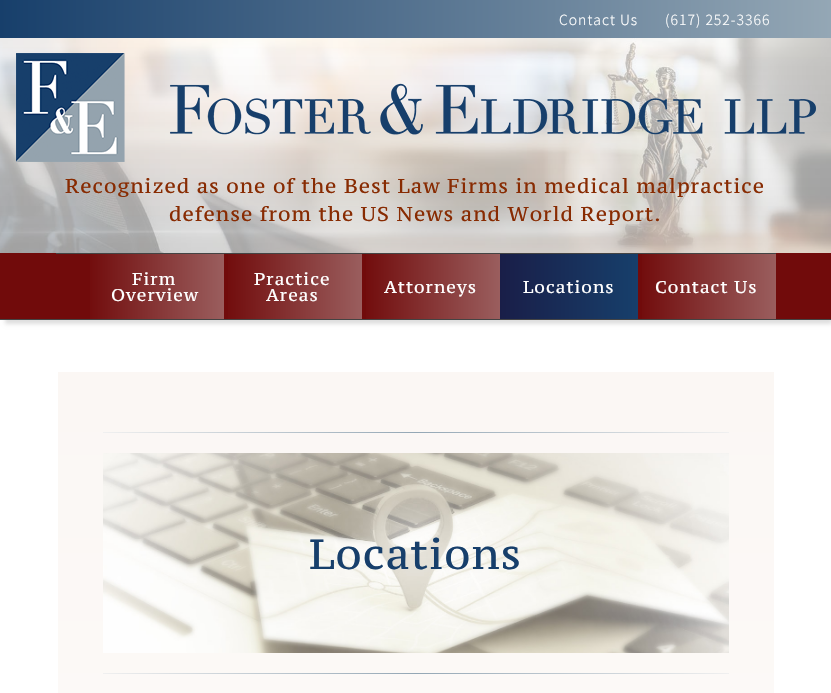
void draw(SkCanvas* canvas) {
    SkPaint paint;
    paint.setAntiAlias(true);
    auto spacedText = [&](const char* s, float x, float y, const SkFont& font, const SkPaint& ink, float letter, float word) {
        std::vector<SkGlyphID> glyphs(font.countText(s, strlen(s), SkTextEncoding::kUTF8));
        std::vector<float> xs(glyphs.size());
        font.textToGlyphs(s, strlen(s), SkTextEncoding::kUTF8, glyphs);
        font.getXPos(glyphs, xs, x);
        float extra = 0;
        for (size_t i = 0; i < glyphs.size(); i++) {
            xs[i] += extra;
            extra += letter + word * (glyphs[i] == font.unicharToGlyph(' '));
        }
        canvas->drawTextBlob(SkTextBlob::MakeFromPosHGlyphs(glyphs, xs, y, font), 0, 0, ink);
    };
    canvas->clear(0xFFFFFFFF);
    {
        const SkColor colors[] = {0xFF173F6B, 0xFF94A7B5};
        const float stops[] = {0, 1};
        const SkPoint ends[] = {{0, 19}, {831, 19}};
        paint.setShader(SkGradientShader::MakeLinear(ends, colors, stops, 2, SkTileMode::kClamp));
        paint.setAlpha(255);
    }
    canvas->drawRect(SkRect::MakeXYWH(0, 0, 831, 38), paint);
    SkFont font1(fontMgr->matchFamilyStyle("Noto Sans JP", SkFontStyle(300, SkFontStyle::kNormal_Width, SkFontStyle::kUpright_Slant)), 14);
    font1.setSubpixel(true);
    paint.setShader(nullptr);
    paint.setColor(0xFFFFFFFF);
    spacedText("Contact Us", 559, 25, font1, paint, 1, 0);
    spacedText("(617) 252-3366", 665, 25, font1, paint, 1, 0);
    canvas->drawImageRect(SkImages::DeferredFromEncodedData(SkData::MakeFromFileName("img1.png")), SkRect::MakeXYWH(0, 38, 831, 215), SkSamplingOptions());
    canvas->drawImageRect(SkImages::DeferredFromEncodedData(SkData::MakeFromFileName("img2.png")), SkRect::MakeXYWH(16, 53, 800, 109), SkSamplingOptions());
    SkFont font2(fontMgr->matchFamilyStyle("PT Serif Caption", SkFontStyle::Normal()), 20);
    font2.setSubpixel(true);
    paint.setColor(0xFF882B02);
    spacedText("Recognized as one of the Best Law Firms in medical malpractice", 65, 193, font2, paint, 1, 0);
    spacedText("defense from the US News and World Report.", 169, 221, font2, paint, 1, 0);
    paint.setColor(0xFFDEDEDE);
    paint.setMaskFilter(SkMaskFilter::MakeBlur(kNormal_SkBlurStyle, 2));
    canvas->drawRect(SkRect::MakeXYWH(5, 261, 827, 63), paint);
    paint.setMaskFilter(nullptr);
    paint.setColor(0xFF710B0B);
    canvas->drawRect(SkRect::MakeXYWH(0, 253, 831, 66), paint);
    paint.setColor(0xFF444444);
    canvas->drawRect(SkRect::MakeXYWH(0, 319, 831, 1), paint);
    canvas->drawRect(SkRect::MakeXYWH(56, 253, 720, 1), paint);
    {
        const SkColor colors[] = {0xFF710B0B, 0xFF9A5E5E};
        const float stops[] = {0, 1};
        const SkPoint ends[] = {{86, 287}, {224, 287}};
        paint.setShader(SkGradientShader::MakeLinear(ends, colors, stops, 2, SkTileMode::kClamp));
        paint.setAlpha(255);
    }
    canvas->drawRect(SkRect::MakeXYWH(90, 254, 134, 65), paint);
    SkFont font3(fontMgr->matchFamilyStyle("PT Serif Caption", SkFontStyle::Normal()), 17);
    font3.setSubpixel(true);
    paint.setShader(nullptr);
    paint.setColor(0xFFFFFFFF);
    spacedText("Firm", 132, 285, font3, paint, 1, 0);
    spacedText("Overview", 111, 301, font3, paint, 1, 0);
    {
        const SkColor colors[] = {0xFF710B0B, 0xFF9A5E5E};
        const float stops[] = {0, 1};
        const SkPoint ends[] = {{224, 287}, {362, 287}};
        paint.setShader(SkGradientShader::MakeLinear(ends, colors, stops, 2, SkTileMode::kClamp));
        paint.setAlpha(255);
    }
    canvas->drawRect(SkRect::MakeXYWH(228, 254, 134, 65), paint);
    paint.setShader(nullptr);
    paint.setColor(0xFFFFFFFF);
    spacedText("Practice", 254, 285, font3, paint, 1, 0);
    spacedText("Areas", 266, 301, font3, paint, 1, 0);
    {
        const SkColor colors[] = {0xFF710B0B, 0xFF9A5E5E};
        const float stops[] = {0, 1};
        const SkPoint ends[] = {{362, 287}, {500, 287}};
        paint.setShader(SkGradientShader::MakeLinear(ends, colors, stops, 2, SkTileMode::kClamp));
        paint.setAlpha(255);
    }
    canvas->drawRect(SkRect::MakeXYWH(366, 254, 134, 65), paint);
    paint.setShader(nullptr);
    paint.setColor(0xFFFFFFFF);
    spacedText("Attorneys", 384, 293, font3, paint, 1, 0);
    {
        const SkColor colors[] = {0xFF191E48, 0xFF173F6B};
        const float stops[] = {0, 1};
        const SkPoint ends[] = {{500, 287}, {638, 287}};
        paint.setShader(SkGradientShader::MakeLinear(ends, colors, stops, 2, SkTileMode::kClamp));
        paint.setAlpha(255);
    }
    canvas->drawRect(SkRect::MakeXYWH(500, 254, 138, 65), paint);
    paint.setShader(nullptr);
    paint.setColor(0xFFFFFFFF);
    spacedText("Locations", 523, 293, font3, paint, 1, 0);
    {
        const SkColor colors[] = {0xFF710B0B, 0xFF9A5E5E};
        const float stops[] = {0, 1};
        const SkPoint ends[] = {{638, 287}, {776, 287}};
        paint.setShader(SkGradientShader::MakeLinear(ends, colors, stops, 2, SkTileMode::kClamp));
        paint.setAlpha(255);
    }
    canvas->drawRect(SkRect::MakeXYWH(642, 254, 134, 65), paint);
    paint.setShader(nullptr);
    paint.setColor(0xFFFFFFFF);
    spacedText("Contact Us", 655, 293, font3, paint, 1, 0);
    {
        const SkColor colors[] = {0xFFFBF7F4, 0xFFFFFFFF};
        const float stops[] = {0, 1};
        const SkPoint ends[] = {{416, 372}, {416, 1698}};
        paint.setShader(SkGradientShader::MakeLinear(ends, colors, stops, 2, SkTileMode::kClamp));
        paint.setAlpha(255);
    }
    canvas->drawRect(SkRect::MakeXYWH(58, 372, 716, 321), paint);
    {
        const SkColor colors[] = {0xFFF0F0F0, 0xFF94A7B5, 0xFFF0F0F0};
        const float stops[] = {0, 0.5f, 1};
        const SkPoint ends[] = {{103, 433}, {729, 433}};
        paint.setShader(SkGradientShader::MakeLinear(ends, colors, stops, 3, SkTileMode::kClamp));
        paint.setAlpha(255);
    }
    canvas->drawRect(SkRect::MakeXYWH(103, 432, 626, 1), paint);
    canvas->drawImageRect(SkImages::DeferredFromEncodedData(SkData::MakeFromFileName("img3.png")), SkRect::MakeXYWH(103, 453, 626, 200), SkSamplingOptions());
    SkFont font4(fontMgr->matchFamilyStyle("PT Serif Caption", SkFontStyle::Normal()), 42);
    font4.setSubpixel(true);
    paint.setShader(nullptr);
    paint.setColor(0xFF173F6B);
    spacedText("Locations", 309, 569, font4, paint, 1, 0);
    {
        const SkColor colors[] = {0xFFF0F0F0, 0xFF94A7B5, 0xFFF0F0F0};
        const float stops[] = {0, 0.5f, 1};
        const SkPoint ends[] = {{103, 674}, {729, 674}};
        paint.setShader(SkGradientShader::MakeLinear(ends, colors, stops, 3, SkTileMode::kClamp));
        paint.setAlpha(255);
    }
    canvas->drawRect(SkRect::MakeXYWH(103, 673, 626, 1), paint);
}
